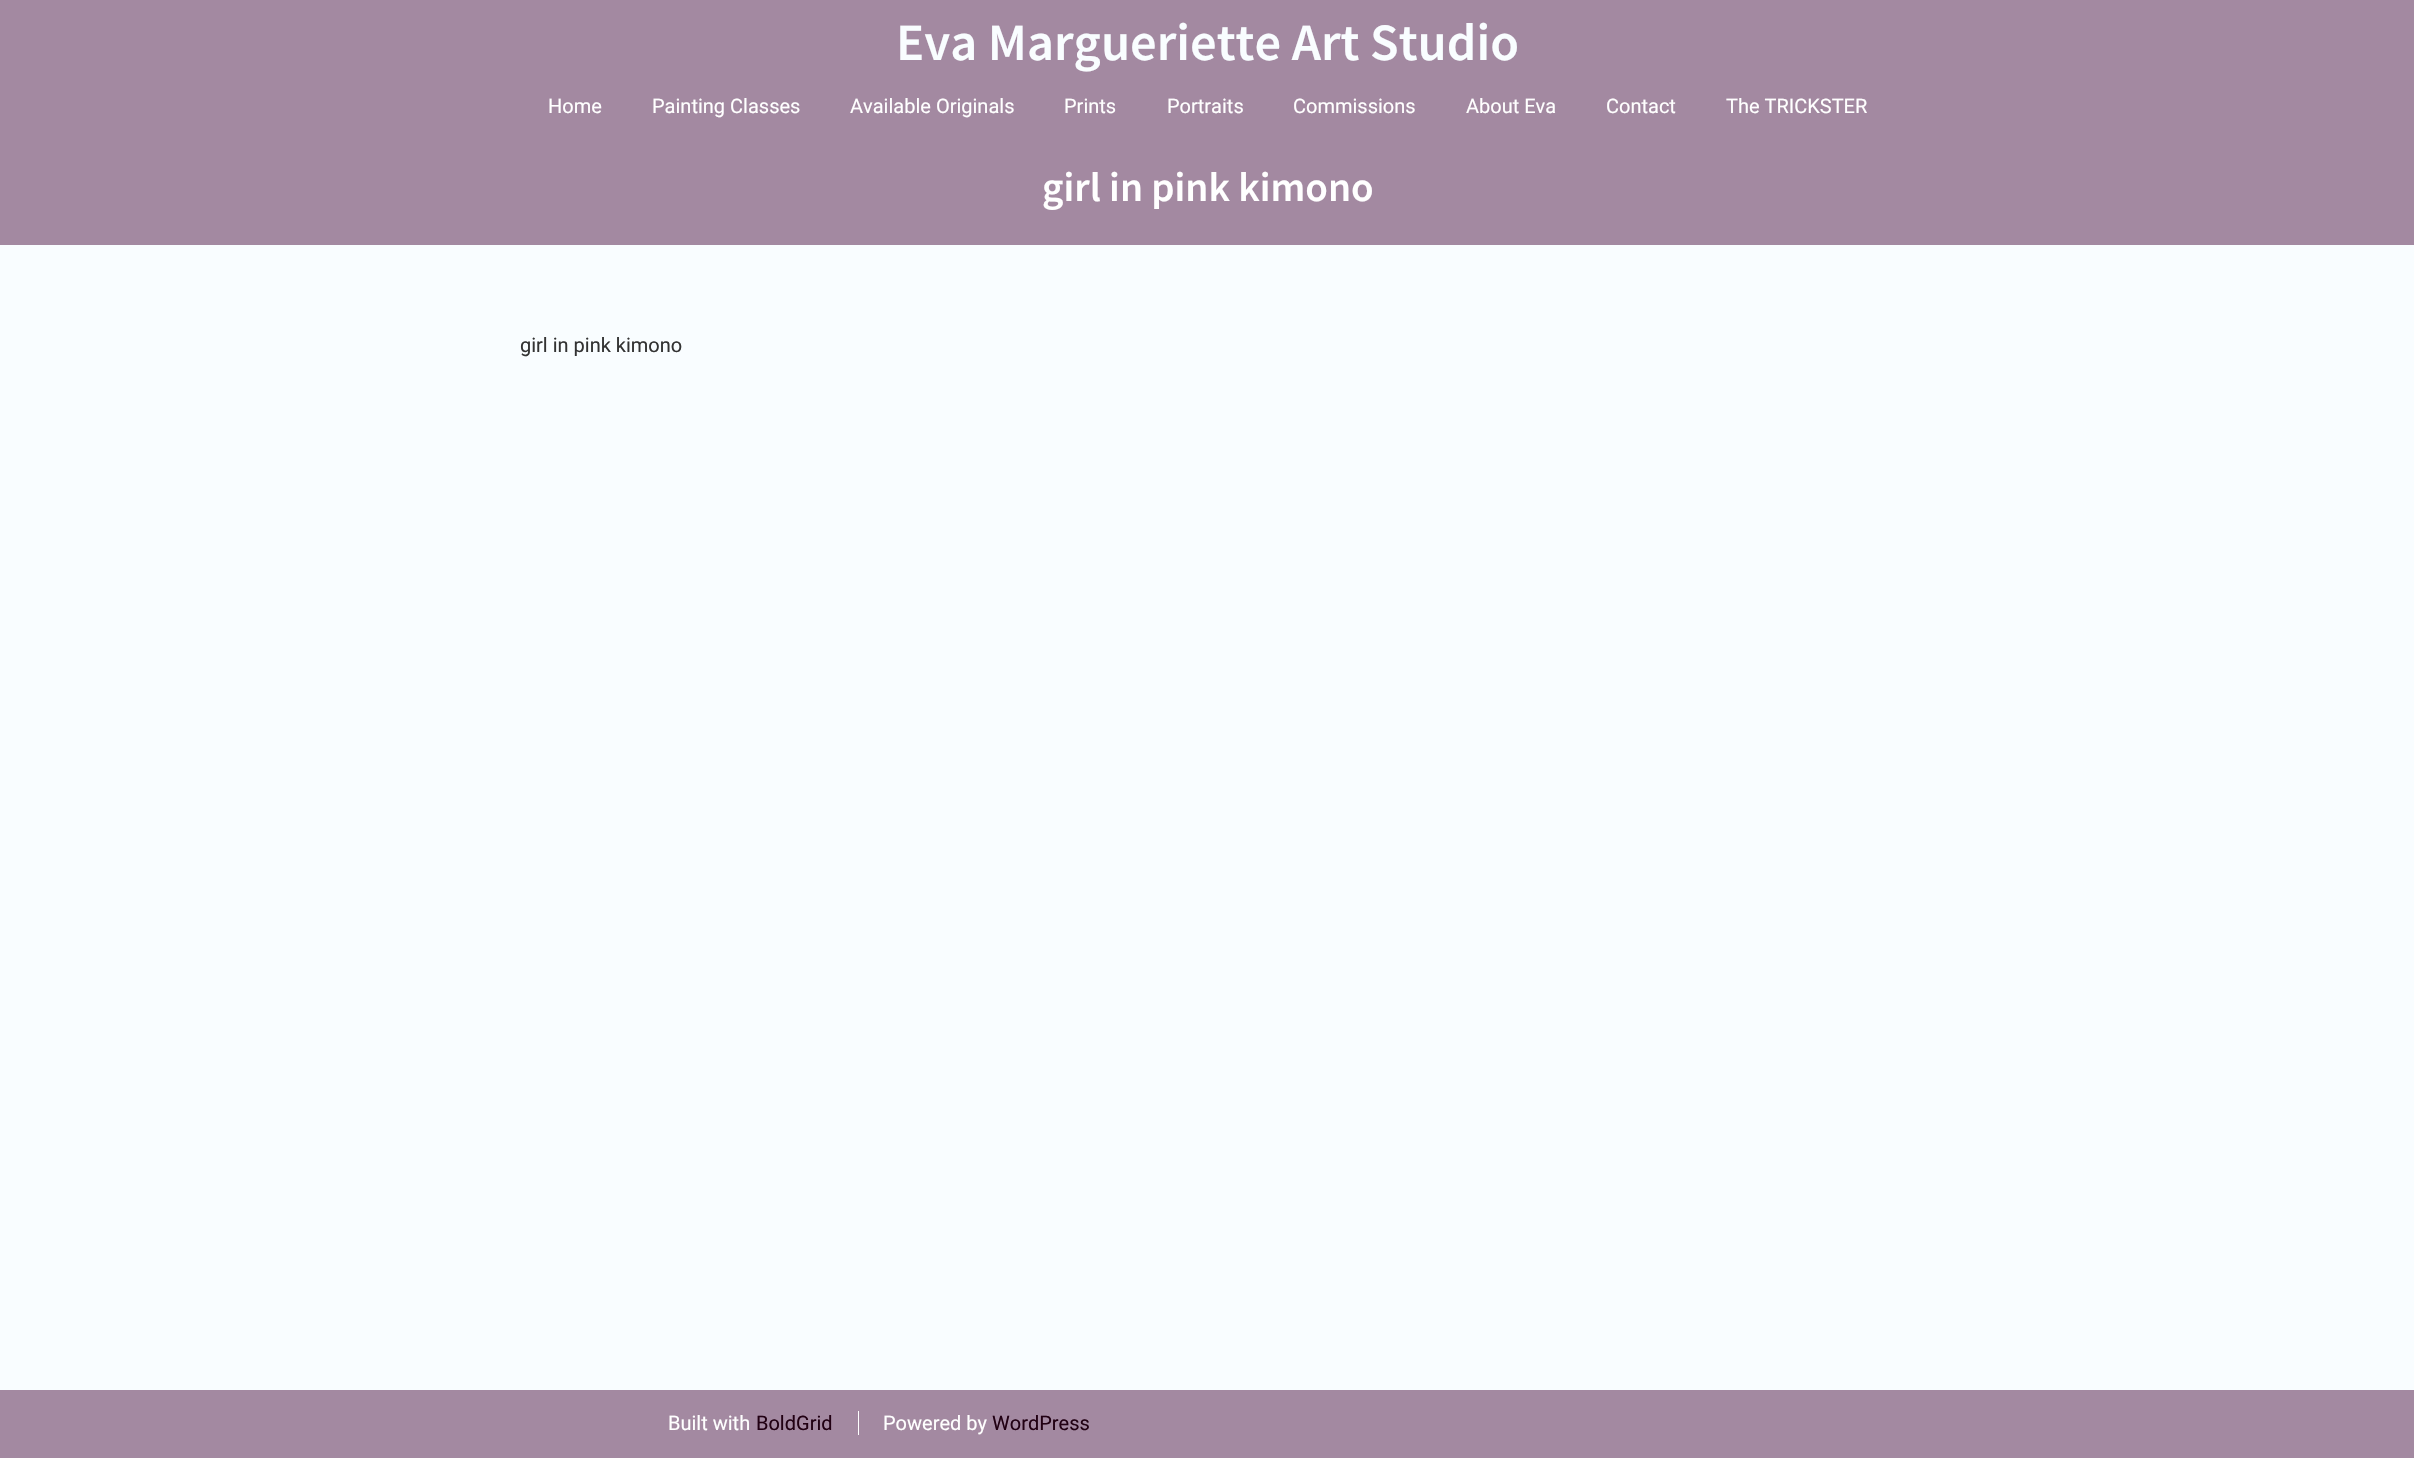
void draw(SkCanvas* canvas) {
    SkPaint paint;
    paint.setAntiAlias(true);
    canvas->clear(0xFFF9FDFF);
    paint.setColor(0xFFA389A1);
    canvas->drawRect(SkRect::MakeXYWH(0, 0, 2414, 245), paint);
    SkFont font1(fontMgr->matchFamilyStyle("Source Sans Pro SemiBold", SkFontStyle(600, SkFontStyle::kNormal_Width, SkFontStyle::kUpright_Slant)), 52.5f);
    font1.setSubpixel(true);
    paint.setColor(0xFFF9FDFF);
    canvas->drawString("Eva Margueriette Art Studio", 896, 60, font1, paint);
    SkFont font2(fontMgr->matchFamilyStyle("Roboto", SkFontStyle::Normal()), 20);
    font2.setSubpixel(true);
    paint.setColor(0xFFFFFFFF);
    canvas->drawString("Home", 548, 113, font2, paint);
    canvas->drawString("Painting Classes", 652, 113, font2, paint);
    canvas->drawString("Available Originals", 850, 113, font2, paint);
    canvas->drawString("Prints", 1064, 113, font2, paint);
    canvas->drawString("Portraits", 1167, 113, font2, paint);
    canvas->drawString("Commissions", 1293, 113, font2, paint);
    canvas->drawString("About Eva", 1466, 113, font2, paint);
    canvas->drawString("Contact", 1606, 113, font2, paint);
    canvas->drawString("The TRICKSTER", 1726, 113, font2, paint);
    SkFont font3(fontMgr->matchFamilyStyle("Source Sans Pro SemiBold", SkFontStyle(600, SkFontStyle::kNormal_Width, SkFontStyle::kUpright_Slant)), 41.25f);
    font3.setSubpixel(true);
    canvas->drawString("girl in pink kimono", 1042, 201, font3, paint);
    paint.setColor(0xFF333333);
    canvas->drawString("girl in pink kimono", 520, 352, font2, paint);
    paint.setColor(0xFFA389A1);
    canvas->drawRect(SkRect::MakeXYWH(0, 1390, 2414, 68), paint);
    paint.setColor(0xFFFFFFFF);
    canvas->drawString("Built with", 668, 1430, font2, paint);
    paint.setColor(0xFF210013);
    canvas->drawString("BoldGrid", 756, 1430, font2, paint);
    paint.setColor(0xFFFFFFFF);
    canvas->drawRect(SkRect::MakeXYWH(858, 1411, 1, 24), paint);
    canvas->drawString("Powered by", 883, 1430, font2, paint);
    paint.setColor(0xFF210013);
    canvas->drawString("WordPress", 992, 1430, font2, paint);
}
